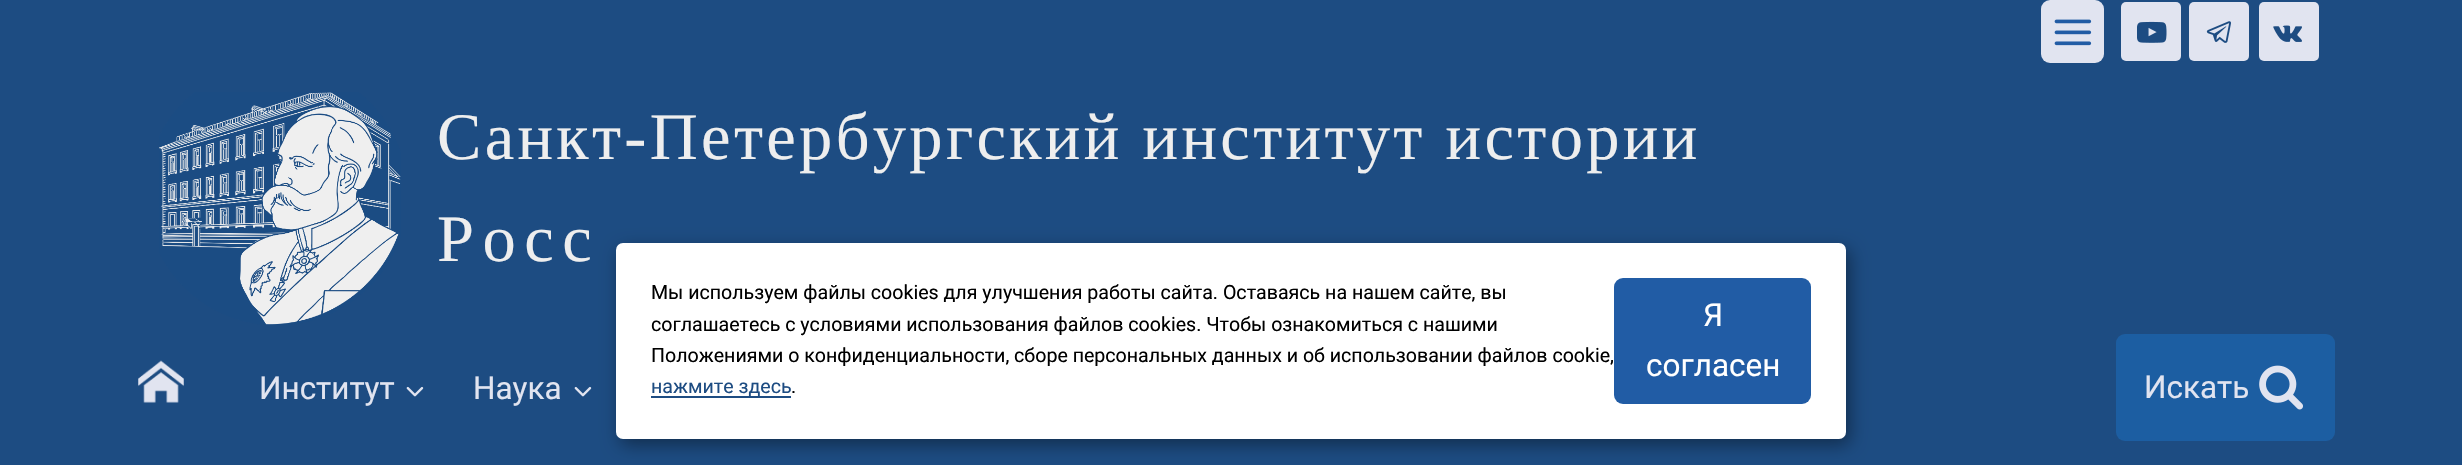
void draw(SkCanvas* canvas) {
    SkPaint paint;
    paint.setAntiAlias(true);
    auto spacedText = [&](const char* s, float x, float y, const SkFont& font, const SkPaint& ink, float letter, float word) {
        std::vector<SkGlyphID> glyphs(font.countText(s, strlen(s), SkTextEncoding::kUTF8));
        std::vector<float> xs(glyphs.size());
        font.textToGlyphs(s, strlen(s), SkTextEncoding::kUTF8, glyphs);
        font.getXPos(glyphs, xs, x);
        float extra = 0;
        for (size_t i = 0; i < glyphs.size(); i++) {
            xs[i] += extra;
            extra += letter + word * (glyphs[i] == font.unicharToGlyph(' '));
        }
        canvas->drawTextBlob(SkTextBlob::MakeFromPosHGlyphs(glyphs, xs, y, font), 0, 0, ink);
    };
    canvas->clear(0xFF1D4C82);
    paint.setColor(0xFFE1E4F0);
    canvas->drawRoundRect(SkRect::MakeXYWH(2041, 0, 63, 63), 9, 9, paint);
    canvas->drawImageRect(SkImages::DeferredFromEncodedData(SkData::MakeFromFileName("img1.png")), SkRect::MakeXYWH(2054, 19, 38, 27), SkSamplingOptions());
    canvas->drawRoundRect(SkRect::MakeXYWH(2121, 2, 60, 59), 5, 5, paint);
    canvas->drawImageRect(SkImages::DeferredFromEncodedData(SkData::MakeFromFileName("img2.png")), SkRect::MakeXYWH(2137, 21, 30, 22), SkSamplingOptions());
    canvas->drawRoundRect(SkRect::MakeXYWH(2189, 2, 60, 59), 5, 5, paint);
    canvas->drawImageRect(SkImages::DeferredFromEncodedData(SkData::MakeFromFileName("img3.png")), SkRect::MakeXYWH(2206, 21, 25, 22), SkSamplingOptions());
    canvas->drawRoundRect(SkRect::MakeXYWH(2259, 2, 60, 59), 5, 5, paint);
    canvas->drawImageRect(SkImages::DeferredFromEncodedData(SkData::MakeFromFileName("img4.png")), SkRect::MakeXYWH(2273, 25, 29, 17), SkSamplingOptions());
    canvas->drawImageRect(SkImages::DeferredFromEncodedData(SkData::MakeFromFileName("img5.png")), SkRect::MakeXYWH(159, 92, 242, 233), SkSamplingOptions());
    SkFont font1(fontMgr->matchFamilyStyle("Liberation Serif", SkFontStyle::Normal()), 66.5f);
    font1.setSubpixel(true);
    paint.setColor(0xFFEEEEEE);
    spacedText("Санкт-Петербургский институт истории", 437, 159, font1, paint, 3.3f, 0);
    spacedText("Росс", 437, 261, font1, paint, 8.5f, 0);
    canvas->drawImageRect(SkImages::DeferredFromEncodedData(SkData::MakeFromFileName("img6.png")), SkRect::MakeXYWH(138, 360, 46, 43), SkSamplingOptions());
    SkFont font2(fontMgr->matchFamilyStyle("Roboto", SkFontStyle::Normal()), 31.5f);
    font2.setSubpixel(true);
    paint.setColor(0xFFE1E4F0);
    canvas->drawString("Институт", 259, 399, font2, paint);
    canvas->drawImageRect(SkImages::DeferredFromEncodedData(SkData::MakeFromFileName("img7.png")), SkRect::MakeXYWH(406, 386, 18, 11), SkSamplingOptions());
    canvas->drawString("Наука", 473, 399, font2, paint);
    canvas->drawImageRect(SkImages::DeferredFromEncodedData(SkData::MakeFromFileName("img7.png")), SkRect::MakeXYWH(574, 386, 18, 11), SkSamplingOptions());
    paint.setColor(0xFF1C5EA2);
    canvas->drawRoundRect(SkRect::MakeXYWH(2116, 334, 219, 107), 9, 9, paint);
    paint.setColor(0xFFE1E4F0);
    canvas->drawString("Искать", 2144, 398, font2, paint);
    canvas->drawImageRect(SkImages::DeferredFromEncodedData(SkData::MakeFromFileName("img8.png")), SkRect::MakeXYWH(2259, 365, 44, 45), SkSamplingOptions());
    paint.setColor(0x66000000);
    paint.setMaskFilter(SkMaskFilter::MakeBlur(kNormal_SkBlurStyle, 9));
    canvas->drawRoundRect(SkRect::MakeXYWH(620, 249, 1230, 196), 7, 7, paint);
    paint.setMaskFilter(nullptr);
    paint.setColor(0xFFFFFFFF);
    canvas->drawRoundRect(SkRect::MakeXYWH(616, 243, 1230, 196), 7, 7, paint);
    SkFont font3(fontMgr->matchFamilyStyle("Roboto", SkFontStyle::Normal()), 19.6f);
    font3.setSubpixel(true);
    paint.setColor(0xFF000000);
    canvas->drawString("Мы используем файлы cookies для улучшения работы сайта. Оставаясь на нашем сайте, вы", 651, 299, font3, paint);
    canvas->drawString("соглашаетесь с условиями использования файлов cookies. Чтобы ознакомиться с нашими", 651, 331, font3, paint);
    canvas->drawString("Положениями о конфиденциальности, сборе персональных данных и об использовании файлов cookie,", 651, 362, font3, paint);
    paint.setColor(0xFF1D4C82);
    canvas->drawRect(SkRect::MakeXYWH(651, 396, 140, 2), paint);
    canvas->drawString("нажмите здесь", 651, 393, font3, paint);
    paint.setColor(0xFF000000);
    canvas->drawString(".", 791, 393, font3, paint);
    paint.setColor(0xFF215CA5);
    canvas->drawRoundRect(SkRect::MakeXYWH(1614, 278, 197, 126), 9, 9, paint);
    paint.setColor(0xFFFFFFFF);
    canvas->drawString("Я", 1703, 326, font2, paint);
    canvas->drawString("согласен", 1646, 376, font2, paint);
}
